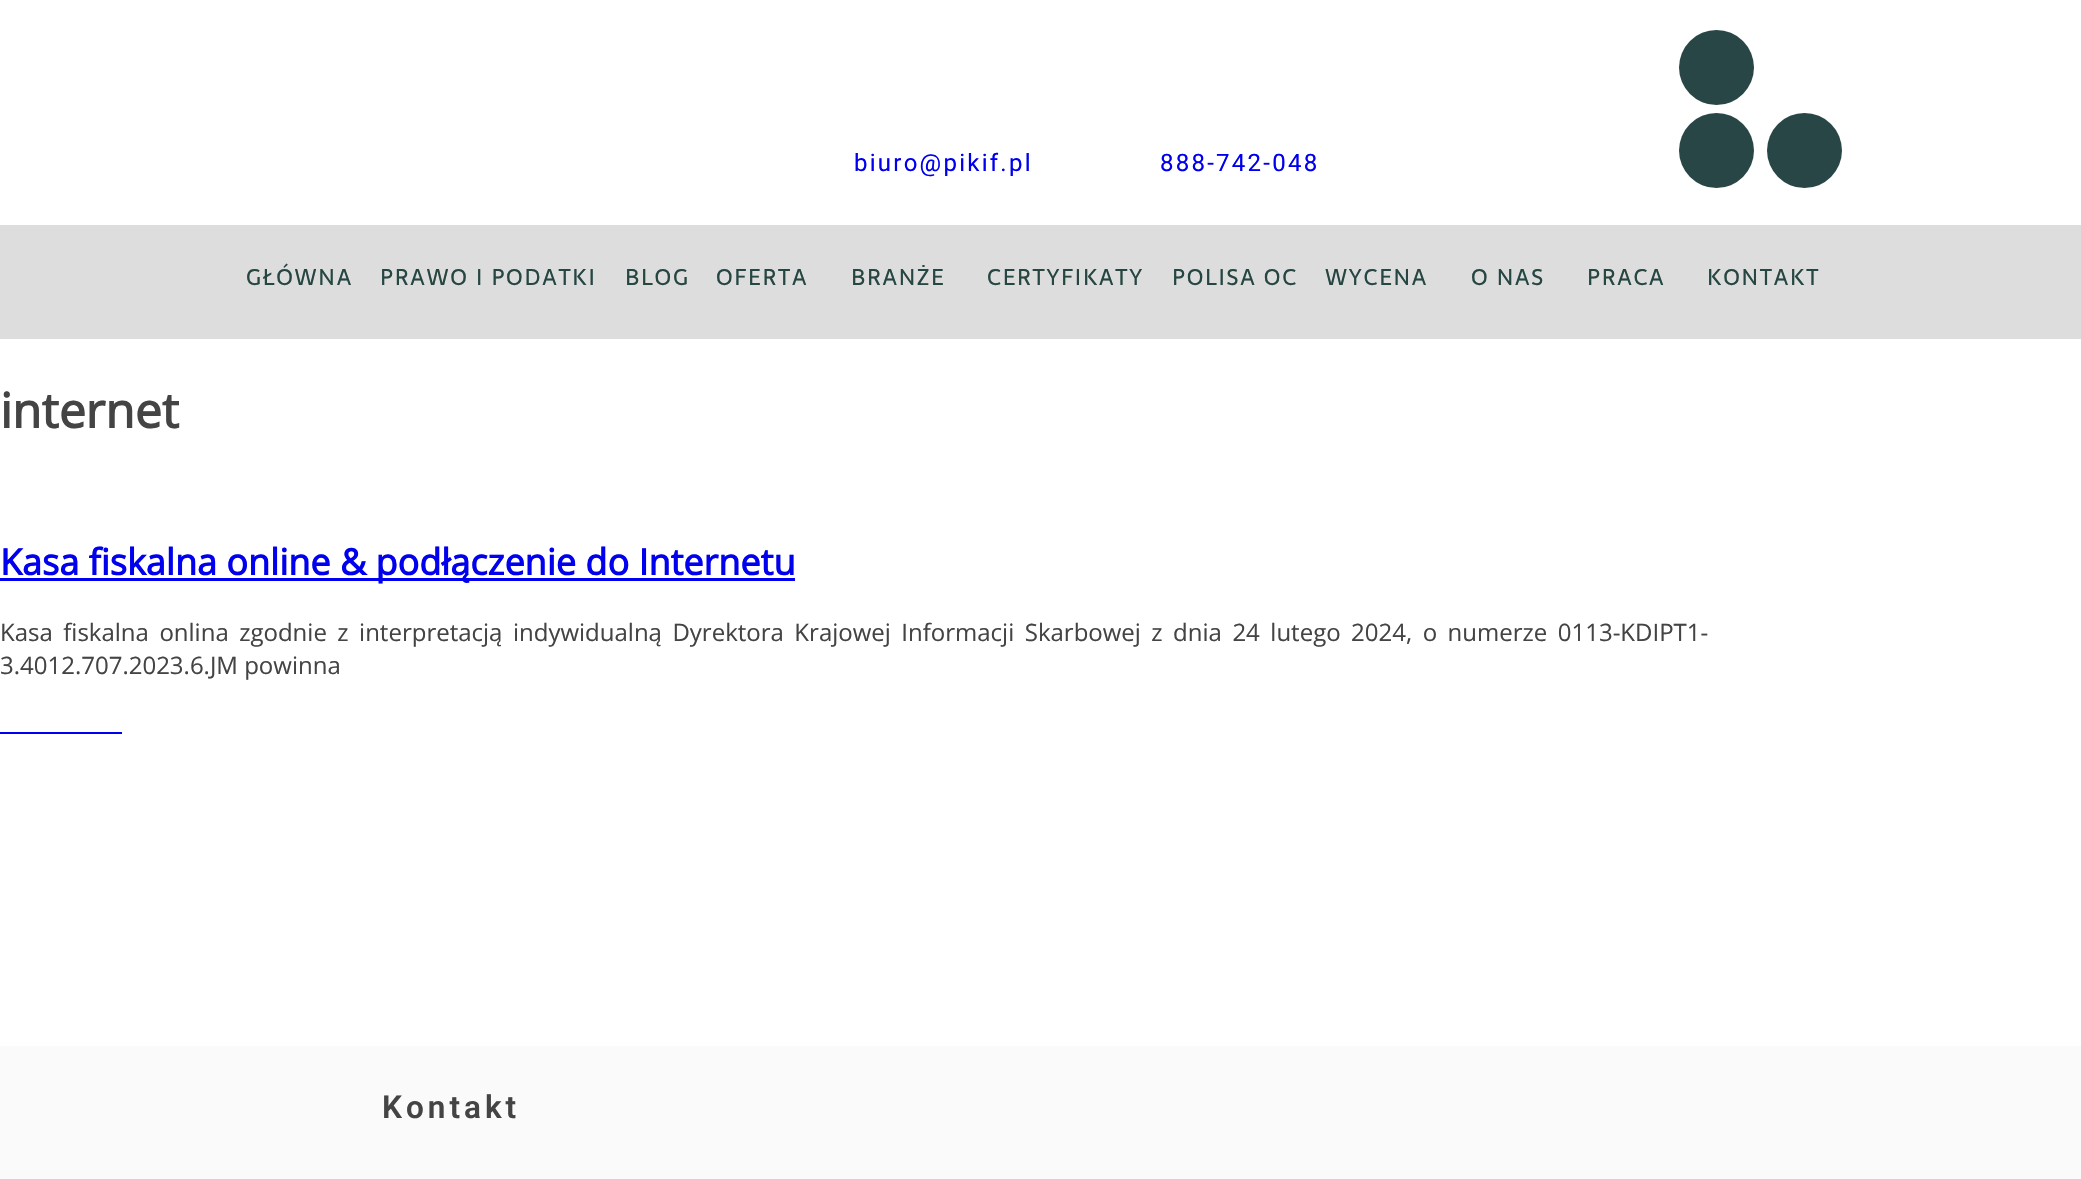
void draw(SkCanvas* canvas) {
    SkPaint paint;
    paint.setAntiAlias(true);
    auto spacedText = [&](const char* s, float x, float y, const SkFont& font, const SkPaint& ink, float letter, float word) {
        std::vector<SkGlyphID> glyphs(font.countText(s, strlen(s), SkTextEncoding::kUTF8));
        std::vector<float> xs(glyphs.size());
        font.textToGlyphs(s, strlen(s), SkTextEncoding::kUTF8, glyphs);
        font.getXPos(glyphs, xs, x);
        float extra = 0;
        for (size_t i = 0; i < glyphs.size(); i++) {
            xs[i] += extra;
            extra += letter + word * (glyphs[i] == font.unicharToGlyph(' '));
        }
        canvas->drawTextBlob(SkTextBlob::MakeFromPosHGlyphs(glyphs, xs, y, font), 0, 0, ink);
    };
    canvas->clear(0xFFFFFFFF);
    SkFont font1(fontMgr->matchFamilyStyle("Roboto", SkFontStyle::Normal()), 24);
    font1.setSubpixel(true);
    paint.setColor(0xFF0000EE);
    spacedText("biuro@pikif.pl", 854, 171, font1, paint, 2.25f, 0);
    spacedText("888-742-048", 1160, 171, font1, paint, 2.25f, 0);
    paint.setColor(0xFF294646);
    canvas->drawCircle(1716.5f, 67.5f, 37.5f, paint);
    canvas->drawCircle(1716.5f, 150.5f, 37.5f, paint);
    canvas->drawCircle(1804.5f, 150.5f, 37.5f, paint);
    paint.setColor(0xFFDDDDDD);
    canvas->drawRect(SkRect::MakeXYWH(0, 225, 2081, 114), paint);
    SkFont font2(fontMgr->matchFamilyStyle("Sarala", SkFontStyle::Normal()), 22.5f);
    font2.setSubpixel(true);
    paint.setColor(0xFF264642);
    spacedText("GŁÓWNA", 246, 285, font2, paint, 1.75f, 0);
    spacedText("PRAWO I PODATKI", 380, 285, font2, paint, 1.75f, 0);
    spacedText("BLOG", 625, 285, font2, paint, 1.75f, 0);
    spacedText("OFERTA", 716, 285, font2, paint, 1.75f, 0);
    spacedText("BRANŻE", 851, 285, font2, paint, 1.75f, 0);
    spacedText("CERTYFIKATY", 987, 285, font2, paint, 1.75f, 0);
    spacedText("POLISA OC", 1172, 285, font2, paint, 1.75f, 0);
    spacedText("WYCENA", 1325, 285, font2, paint, 1.75f, 0);
    spacedText("O NAS", 1471, 285, font2, paint, 1.75f, 0);
    spacedText("PRACA", 1587, 285, font2, paint, 1.75f, 0);
    spacedText("KONTAKT", 1707, 285, font2, paint, 1.75f, 0);
    SkFont font3(fontMgr->matchFamilyStyle("Open Sans", SkFontStyle::Bold()), 48);
    font3.setSubpixel(true);
    paint.setColor(0xFF444444);
    canvas->drawString("internet", 0, 428, font3, paint);
    paint.setColor(0xFF0000EE);
    canvas->drawRect(SkRect::MakeXYWH(0, 578, 795, 3), paint);
    SkFont font4(fontMgr->matchFamilyStyle("Open Sans", SkFontStyle::Bold()), 36);
    font4.setSubpixel(true);
    canvas->drawString("Kasa fiskalna online & podłączenie do Internetu", 0, 575, font4, paint);
    SkFont font5(fontMgr->matchFamilyStyle("Open Sans", SkFontStyle::Normal()), 24);
    font5.setSubpixel(true);
    paint.setColor(0xFF444444);
    spacedText("Kasa fiskalna onlina zgodnie z interpretacją indywidualną Dyrektora Krajowej Informacji Skarbowej z dnia 24 lutego 2024, o numerze 0113-KDIPT1-", 0, 641, font5, paint, 0, 4.25f);
    canvas->drawString("3.4012.707.2023.6.JM powinna", 0, 674, font5, paint);
    paint.setColor(0xFF0000EE);
    canvas->drawRect(SkRect::MakeXYWH(0, 732, 122, 2), paint);
    paint.setColor(0xFFFAFAFA);
    canvas->drawRect(SkRect::MakeXYWH(0, 1046, 2081, 133), paint);
    SkFont font6(fontMgr->matchFamilyStyle("Roboto", SkFontStyle(600, SkFontStyle::kNormal_Width, SkFontStyle::kUpright_Slant)), 31.5f);
    font6.setSubpixel(true);
    paint.setColor(0xFF444444);
    spacedText("Kontakt", 382, 1118, font6, paint, 4, 0);
}
